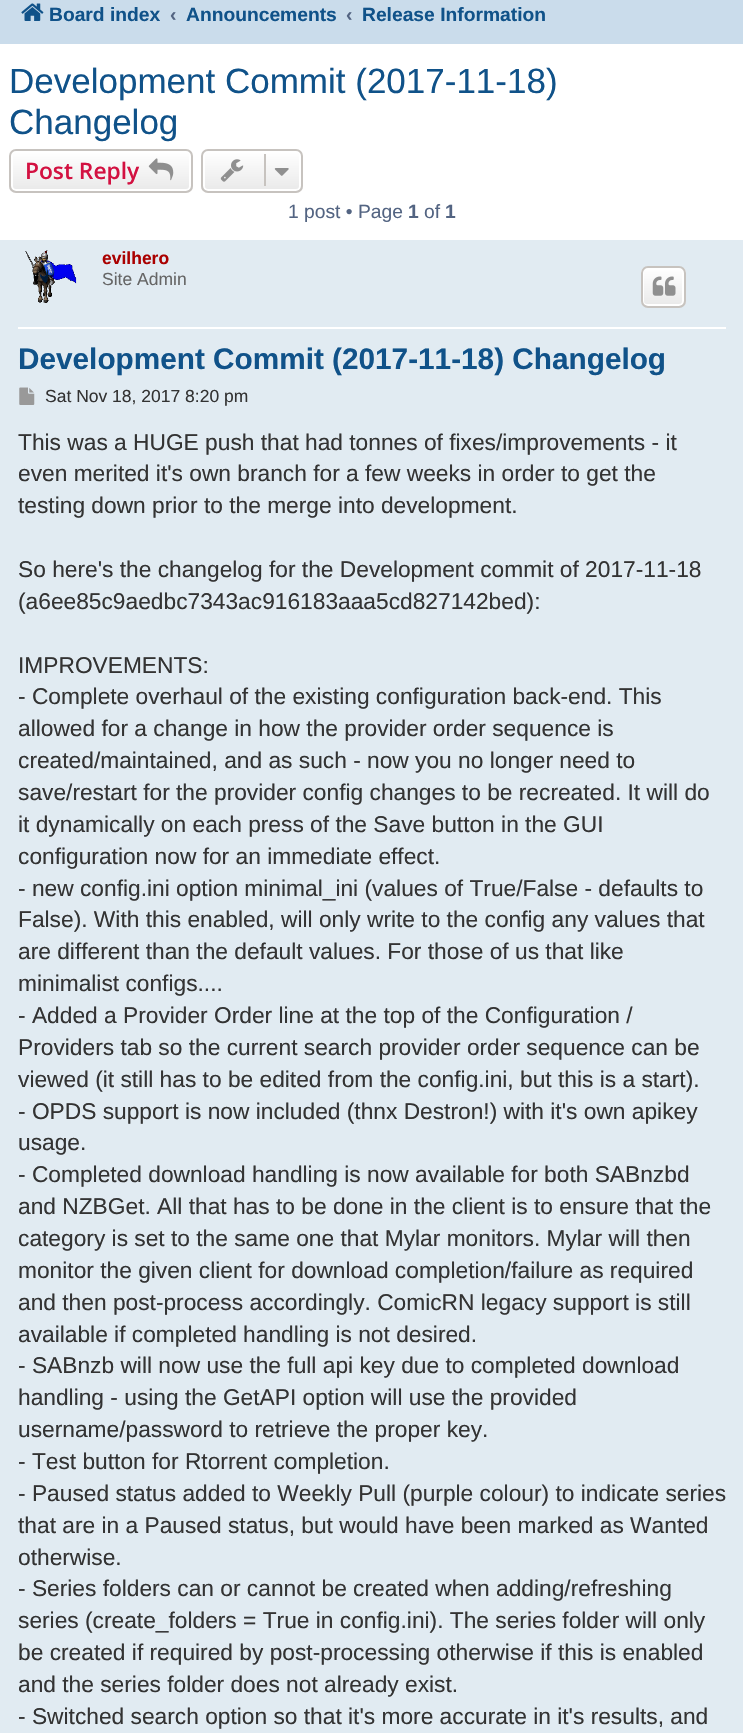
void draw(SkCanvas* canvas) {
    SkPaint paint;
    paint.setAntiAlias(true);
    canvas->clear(0xFFFFFFFF);
    paint.setColor(0xFFCADCEB);
    canvas->drawRect(SkRect::MakeXYWH(0, 0, 743, 44), paint);
    canvas->drawImageRect(SkImages::DeferredFromEncodedData(SkData::MakeFromFileName("img1.png")), SkRect::MakeXYWH(21, 3, 23, 18), SkSamplingOptions());
    SkFont font1(fontMgr->matchFamilyStyle("Liberation Sans", SkFontStyle::Bold()), 19.25f);
    font1.setSubpixel(true);
    paint.setColor(0xFF105289);
    canvas->drawString("Board index", 49, 21, font1, paint);
    paint.setColor(0xFF536482);
    canvas->drawString("‹", 170, 21, font1, paint);
    paint.setColor(0xFF105289);
    canvas->drawString("Announcements", 186, 21, font1, paint);
    paint.setColor(0xFF536482);
    canvas->drawString("‹", 346, 21, font1, paint);
    paint.setColor(0xFF105289);
    canvas->drawString("Release Information", 362, 21, font1, paint);
    SkFont font2(fontMgr->matchFamilyStyle("Liberation Sans", SkFontStyle::Normal()), 35);
    font2.setSubpixel(true);
    canvas->drawString("Development Commit (2017-11-18)", 9, 93, font2, paint);
    canvas->drawString("Changelog", 9, 134, font2, paint);
    canvas->save();
    canvas->clipPath(SkPathBuilder().moveTo(16, 149).lineTo(186, 149).cubicTo(190, 149, 193, 152, 193, 156).lineTo(193, 186).cubicTo(193, 190, 190, 193, 186, 193).lineTo(16, 193).cubicTo(12, 193, 9, 190, 9, 186).lineTo(9, 156).cubicTo(9, 152, 12, 149, 16, 149).close().detach(), true);
    {
        const SkColor colors[] = {0xFFFFFFFF, 0xFFE9E9E9};
        const float stops[] = {0, 1};
        const SkPoint ends[] = {{101, 151}, {101, 191}};
        paint.setShader(SkGradientShader::MakeLinear(ends, colors, stops, 2, SkTileMode::kClamp));
        paint.setAlpha(255);
    }
    canvas->drawRect(SkRect::MakeXYWH(9, 151, 184, 40), paint);
    canvas->restore();
    paint.setStyle(SkPaint::kStroke_Style);
    paint.setStrokeWidth(2);
    paint.setShader(nullptr);
    paint.setColor(0xFFFFFFFF);
    canvas->drawRoundRect(SkRect::MakeXYWH(12, 152, 178, 38), 4, 4, paint);
    paint.setColor(0xFFC7C3BF);
    canvas->drawRoundRect(SkRect::MakeXYWH(10, 150, 182, 42), 6, 6, paint);
    SkFont font3(fontMgr->matchFamilyStyle("Open Sans", SkFontStyle(600, SkFontStyle::kNormal_Width, SkFontStyle::kUpright_Slant)), 22.75f);
    font3.setSubpixel(true);
    paint.setStyle(SkPaint::kFill_Style);
    paint.setColor(0xFFD31141);
    canvas->drawString("Post Reply", 25, 179, font3, paint);
    canvas->drawImageRect(SkImages::DeferredFromEncodedData(SkData::MakeFromFileName("img2.png")), SkRect::MakeXYWH(148, 158, 26, 23), SkSamplingOptions());
    canvas->save();
    canvas->clipPath(SkPathBuilder().moveTo(208, 149).lineTo(296, 149).cubicTo(300, 149, 303, 152, 303, 156).lineTo(303, 186).cubicTo(303, 190, 300, 193, 296, 193).lineTo(208, 193).cubicTo(204, 193, 201, 190, 201, 186).lineTo(201, 156).cubicTo(201, 152, 204, 149, 208, 149).close().detach(), true);
    {
        const SkColor colors[] = {0xFFFFFFFF, 0xFFE9E9E9};
        const float stops[] = {0, 1};
        const SkPoint ends[] = {{252, 151}, {252, 191}};
        paint.setShader(SkGradientShader::MakeLinear(ends, colors, stops, 2, SkTileMode::kClamp));
        paint.setAlpha(255);
    }
    canvas->drawRect(SkRect::MakeXYWH(201, 151, 102, 40), paint);
    canvas->restore();
    paint.setStyle(SkPaint::kStroke_Style);
    paint.setShader(nullptr);
    paint.setColor(0xFFFFFFFF);
    canvas->drawRoundRect(SkRect::MakeXYWH(204, 152, 96, 38), 4, 4, paint);
    paint.setColor(0xFFC7C3BF);
    canvas->drawRoundRect(SkRect::MakeXYWH(202, 150, 100, 42), 6, 6, paint);
    canvas->drawImageRect(SkImages::DeferredFromEncodedData(SkData::MakeFromFileName("img3.png")), SkRect::MakeXYWH(220, 159, 24, 23), SkSamplingOptions());
    paint.setStyle(SkPaint::kFill_Style);
    canvas->drawRect(SkRect::MakeXYWH(264, 154, 2, 32), paint);
    canvas->drawImageRect(SkImages::DeferredFromEncodedData(SkData::MakeFromFileName("img4.png")), SkRect::MakeXYWH(274, 168, 15, 8), SkSamplingOptions());
    SkFont font4(fontMgr->matchFamilyStyle("Liberation Sans", SkFontStyle::Normal()), 19.25f);
    font4.setSubpixel(true);
    paint.setColor(0xFF536482);
    canvas->drawString("1 post • Page", 288, 218, font4, paint);
    canvas->drawString("1", 408, 218, font1, paint);
    canvas->drawString("of", 424, 218, font4, paint);
    canvas->drawString("1", 445, 218, font1, paint);
    paint.setColor(0xFFE1EBF2);
    canvas->drawRect(SkRect::MakeXYWH(0, 240, 743, 1493), paint);
    paint.setColor(0xFFFFFFFF);
    canvas->drawRect(SkRect::MakeXYWH(18, 327, 708, 2), paint);
    canvas->drawImageRect(SkImages::DeferredFromEncodedData(SkData::MakeFromFileName("img5.png")), SkRect::MakeXYWH(25, 250, 52, 53), SkSamplingOptions());
    SkFont font5(fontMgr->matchFamilyStyle("Liberation Sans", SkFontStyle::Bold()), 17.5f);
    font5.setSubpixel(true);
    paint.setColor(0xFFAA0000);
    canvas->drawString("evilhero", 102, 264, font5, paint);
    SkFont font6(fontMgr->matchFamilyStyle("Liberation Sans", SkFontStyle::Normal()), 17.5f);
    font6.setSubpixel(true);
    paint.setColor(0xFF666666);
    canvas->drawString("Site Admin", 102, 285, font6, paint);
    canvas->save();
    canvas->clipPath(SkPathBuilder().moveTo(648, 266).lineTo(679, 266).cubicTo(683, 266, 686, 269, 686, 273).lineTo(686, 301).cubicTo(686, 305, 683, 308, 679, 308).lineTo(648, 308).cubicTo(644, 308, 641, 305, 641, 301).lineTo(641, 273).cubicTo(641, 269, 644, 266, 648, 266).close().detach(), true);
    {
        const SkColor colors[] = {0xFFFFFFFF, 0xFFE9E9E9};
        const float stops[] = {0, 1};
        const SkPoint ends[] = {{663, 268}, {663, 306}};
        paint.setShader(SkGradientShader::MakeLinear(ends, colors, stops, 2, SkTileMode::kClamp));
        paint.setAlpha(255);
    }
    canvas->drawRect(SkRect::MakeXYWH(641, 268, 45, 38), paint);
    canvas->restore();
    paint.setStyle(SkPaint::kStroke_Style);
    paint.setShader(nullptr);
    paint.setColor(0xFFFFFFFF);
    canvas->drawRoundRect(SkRect::MakeXYWH(643, 269, 40, 36), 4, 4, paint);
    paint.setColor(0xFFC7C3BF);
    canvas->drawRoundRect(SkRect::MakeXYWH(642, 267, 43, 40), 6, 6, paint);
    canvas->drawImageRect(SkImages::DeferredFromEncodedData(SkData::MakeFromFileName("img6.png")), SkRect::MakeXYWH(652, 276, 24, 20), SkSamplingOptions());
    SkFont font7(fontMgr->matchFamilyStyle("Liberation Sans", SkFontStyle::Bold()), 29.75f);
    font7.setSubpixel(true);
    paint.setStyle(SkPaint::kFill_Style);
    paint.setColor(0xFF105289);
    canvas->drawString("Development Commit (2017-11-18) Changelog", 18, 369, font7, paint);
    canvas->drawImageRect(SkImages::DeferredFromEncodedData(SkData::MakeFromFileName("img7.png")), SkRect::MakeXYWH(19, 387, 16, 18), SkSamplingOptions());
    paint.setColor(0xFF333333);
    canvas->drawString("Sat Nov 18, 2017 8:20 pm", 45, 402, font6, paint);
    SkFont font8(fontMgr->matchFamilyStyle("Liberation Sans", SkFontStyle::Normal()), 22.75f);
    font8.setSubpixel(true);
    canvas->drawString("This was a HUGE push that had tonnes of fixes/improvements - it", 18, 450, font8, paint);
    canvas->drawString("even merited it's own branch for a few weeks in order to get the", 18, 481, font8, paint);
    canvas->drawString("testing down prior to the merge into development.", 18, 513, font8, paint);
    canvas->drawString("So here's the changelog for the Development commit of 2017-11-18", 18, 577, font8, paint);
    canvas->drawString("(a6ee85c9aedbc7343ac916183aaa5cd827142bed):", 18, 609, font8, paint);
    canvas->drawString("IMPROVEMENTS:", 18, 673, font8, paint);
    canvas->drawString("- Complete overhaul of the existing configuration back-end. This", 18, 704, font8, paint);
    canvas->drawString("allowed for a change in how the provider order sequence is", 18, 736, font8, paint);
    canvas->drawString("created/maintained, and as such - now you no longer need to", 18, 768, font8, paint);
    canvas->drawString("save/restart for the provider config changes to be recreated. It will do", 18, 800, font8, paint);
    canvas->drawString("it dynamically on each press of the Save button in the GUI", 18, 832, font8, paint);
    canvas->drawString("configuration now for an immediate effect.", 18, 864, font8, paint);
    canvas->drawString("- new config.ini option minimal_ini (values of True/False - defaults to", 18, 896, font8, paint);
    canvas->drawString("False). With this enabled, will only write to the config any values that", 18, 927, font8, paint);
    canvas->drawString("are different than the default values. For those of us that like", 18, 959, font8, paint);
    canvas->drawString("minimalist configs....", 18, 991, font8, paint);
    canvas->drawString("- Added a Provider Order line at the top of the Configuration /", 18, 1023, font8, paint);
    canvas->drawString("Providers tab so the current search provider order sequence can be", 18, 1055, font8, paint);
    canvas->drawString("viewed (it still has to be edited from the config.ini, but this is a start).", 18, 1087, font8, paint);
    canvas->drawString("- OPDS support is now included (thnx Destron!) with it's own apikey", 18, 1119, font8, paint);
    canvas->drawString("usage.", 18, 1150, font8, paint);
    canvas->drawString("- Completed download handling is now available for both SABnzbd", 18, 1182, font8, paint);
    canvas->drawString("and NZBGet. All that has to be done in the client is to ensure that the", 18, 1214, font8, paint);
    canvas->drawString("category is set to the same one that Mylar monitors. Mylar will then", 18, 1246, font8, paint);
    canvas->drawString("monitor the given client for download completion/failure as required", 18, 1278, font8, paint);
    canvas->drawString("and then post-process accordingly. ComicRN legacy support is still", 18, 1310, font8, paint);
    canvas->drawString("available if completed handling is not desired.", 18, 1342, font8, paint);
    canvas->drawString("- SABnzb will now use the full api key due to completed download", 18, 1373, font8, paint);
    canvas->drawString("handling - using the GetAPI option will use the provided", 18, 1405, font8, paint);
    canvas->drawString("username/password to retrieve the proper key.", 18, 1437, font8, paint);
    canvas->drawString("- Test button for Rtorrent completion.", 18, 1469, font8, paint);
    canvas->drawString("- Paused status added to Weekly Pull (purple colour) to indicate series", 18, 1501, font8, paint);
    canvas->drawString("that are in a Paused status, but would have been marked as Wanted", 18, 1533, font8, paint);
    canvas->drawString("otherwise.", 18, 1565, font8, paint);
    canvas->drawString("- Series folders can or cannot be created when adding/refreshing", 18, 1596, font8, paint);
    canvas->drawString("series (create_folders = True in config.ini). The series folder will only", 18, 1628, font8, paint);
    canvas->drawString("be created if required by post-processing otherwise if this is enabled", 18, 1660, font8, paint);
    canvas->drawString("and the series folder does not already exist.", 18, 1692, font8, paint);
    canvas->drawString("- Switched search option so that it's more accurate in it's results, and", 18, 1724, font8, paint);
}
